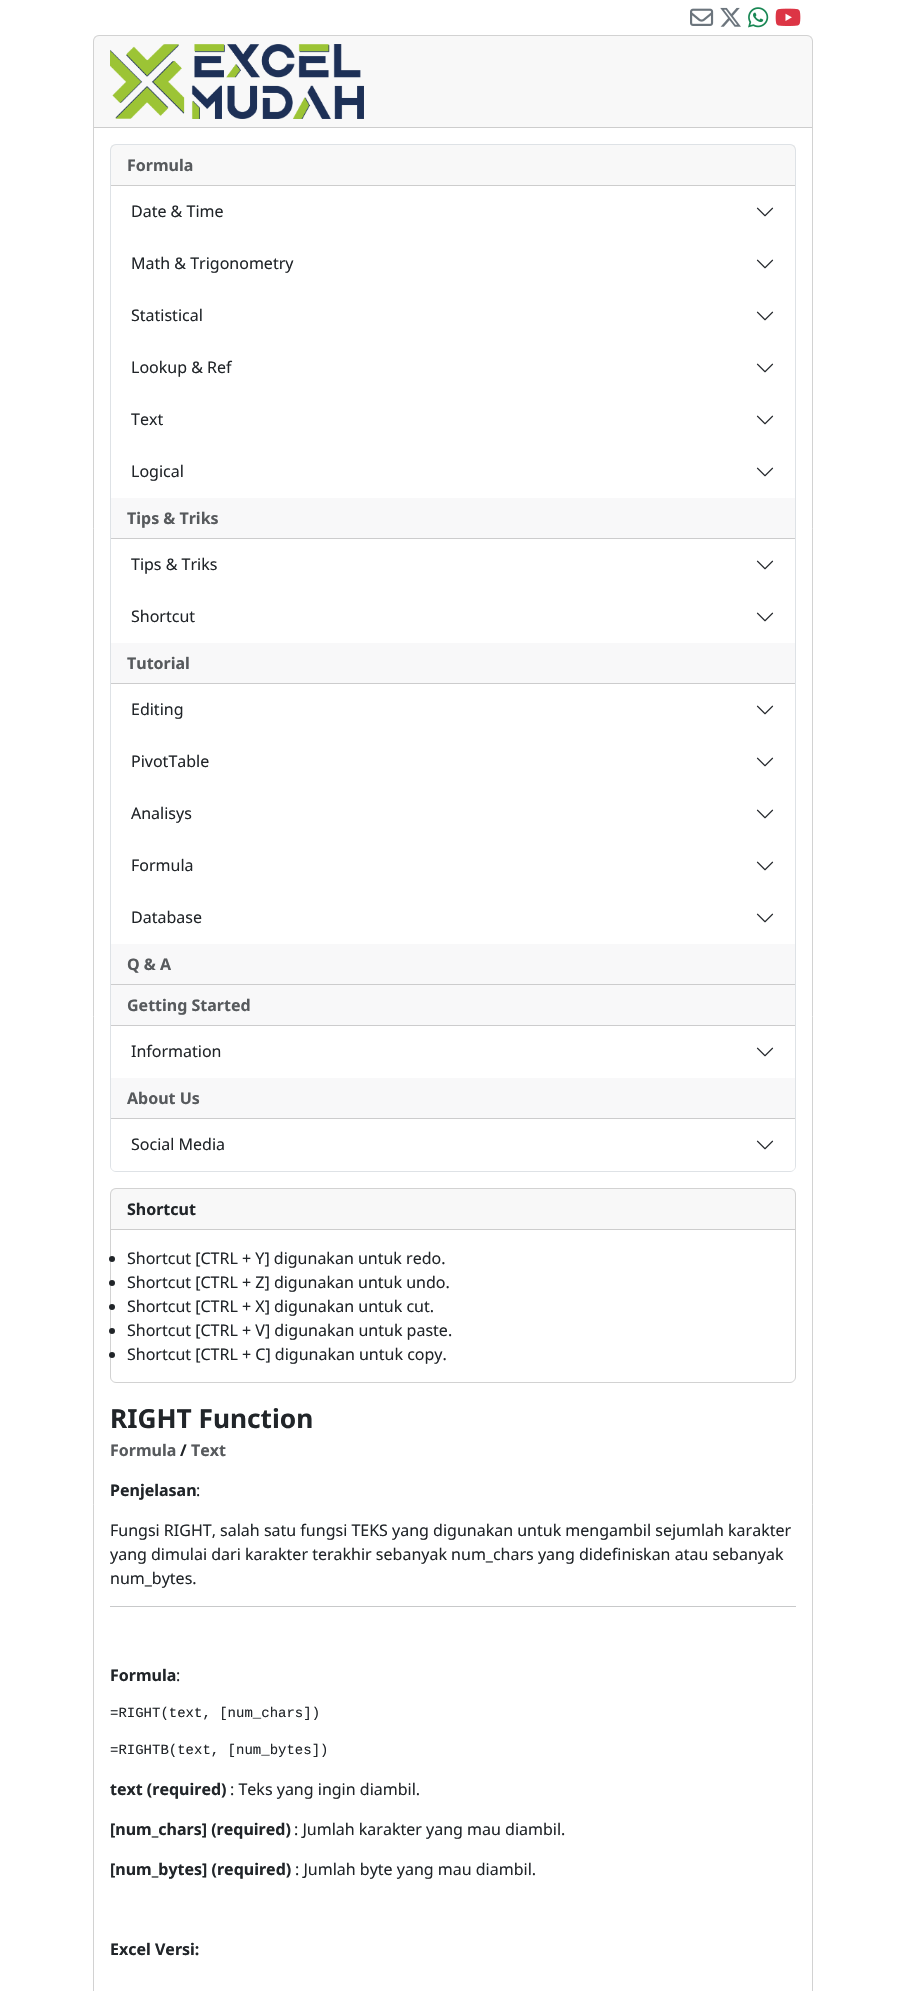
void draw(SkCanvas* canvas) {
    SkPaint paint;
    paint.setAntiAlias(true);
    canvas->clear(0xFFFFFFFF);
    canvas->drawImageRect(SkImages::DeferredFromEncodedData(SkData::MakeFromFileName("img1.png")), SkRect::MakeXYWH(690, 8, 24, 18), SkSamplingOptions());
    canvas->drawImageRect(SkImages::DeferredFromEncodedData(SkData::MakeFromFileName("img2.png")), SkRect::MakeXYWH(720, 7, 21, 20), SkSamplingOptions());
    canvas->drawImageRect(SkImages::DeferredFromEncodedData(SkData::MakeFromFileName("img3.png")), SkRect::MakeXYWH(748, 7, 21, 21), SkSamplingOptions());
    canvas->drawImageRect(SkImages::DeferredFromEncodedData(SkData::MakeFromFileName("img4.png")), SkRect::MakeXYWH(775, 8, 26, 18), SkSamplingOptions());
    paint.setStyle(SkPaint::kStroke_Style);
    paint.setStrokeWidth(1);
    paint.setColor(0xFFD2D2D2);
    canvas->drawRoundRect(SkRect::MakeXYWH(93.5f, 35.5f, 719, 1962), 5.5f, 5.5f, paint);
    paint.setStyle(SkPaint::kFill_Style);
    paint.setColor(0x08212529);
    canvas->drawRect(SkRect::MakeXYWH(94, 36, 718, 91), paint);
    paint.setColor(0xFFCDCDCD);
    canvas->drawRect(SkRect::MakeXYWH(94, 127, 718, 1), paint);
    canvas->drawImageRect(SkImages::DeferredFromEncodedData(SkData::MakeFromFileName("img5.png")), SkRect::MakeXYWH(110, 44, 254, 75), SkSamplingOptions());
    paint.setStyle(SkPaint::kStroke_Style);
    paint.setColor(0xFFDEE2E6);
    canvas->drawRoundRect(SkRect::MakeXYWH(110.5f, 144.5f, 685, 1027), 5.5f, 5.5f, paint);
    paint.setStyle(SkPaint::kFill_Style);
    paint.setColor(0x08212529);
    canvas->drawRect(SkRect::MakeXYWH(111, 145, 684, 40), paint);
    paint.setColor(0xFFCDCDCD);
    canvas->drawRect(SkRect::MakeXYWH(111, 185, 684, 1), paint);
    SkFont font1(fontMgr->matchFamilyStyle("Noto Sans", SkFontStyle::Bold()), 16);
    font1.setSubpixel(true);
    paint.setColor(0xFF575A5D);
    canvas->drawString("Formula", 127, 171, font1, paint);
    SkFont font2(fontMgr->matchFamilyStyle("Noto Sans", SkFontStyle::Normal()), 16);
    font2.setSubpixel(true);
    paint.setColor(0xFF212529);
    canvas->drawString("Date & Time", 131, 217, font2, paint);
    canvas->drawImageRect(SkImages::DeferredFromEncodedData(SkData::MakeFromFileName("img6.png")), SkRect::MakeXYWH(756, 207, 18, 10), SkSamplingOptions());
    canvas->drawString("Math & Trigonometry", 131, 269, font2, paint);
    canvas->drawImageRect(SkImages::DeferredFromEncodedData(SkData::MakeFromFileName("img6.png")), SkRect::MakeXYWH(756, 259, 18, 10), SkSamplingOptions());
    canvas->drawString("Statistical", 131, 321, font2, paint);
    canvas->drawImageRect(SkImages::DeferredFromEncodedData(SkData::MakeFromFileName("img6.png")), SkRect::MakeXYWH(756, 311, 18, 10), SkSamplingOptions());
    canvas->drawString("Lookup & Ref", 131, 373, font2, paint);
    canvas->drawImageRect(SkImages::DeferredFromEncodedData(SkData::MakeFromFileName("img6.png")), SkRect::MakeXYWH(756, 363, 18, 10), SkSamplingOptions());
    canvas->drawString("Text", 131, 425, font2, paint);
    canvas->drawImageRect(SkImages::DeferredFromEncodedData(SkData::MakeFromFileName("img6.png")), SkRect::MakeXYWH(756, 415, 18, 10), SkSamplingOptions());
    canvas->drawString("Logical", 131, 477, font2, paint);
    canvas->drawImageRect(SkImages::DeferredFromEncodedData(SkData::MakeFromFileName("img6.png")), SkRect::MakeXYWH(756, 467, 18, 10), SkSamplingOptions());
    paint.setColor(0xFFF8F8F9);
    canvas->drawRect(SkRect::MakeXYWH(111, 498, 684, 40), paint);
    paint.setColor(0xFFCCCCCD);
    canvas->drawRect(SkRect::MakeXYWH(111, 538, 684, 1), paint);
    paint.setColor(0xFF575A5D);
    canvas->drawString("Tips & Triks", 127, 524, font1, paint);
    paint.setColor(0xFF212529);
    canvas->drawString("Tips & Triks", 131, 570, font2, paint);
    canvas->drawImageRect(SkImages::DeferredFromEncodedData(SkData::MakeFromFileName("img6.png")), SkRect::MakeXYWH(756, 560, 18, 10), SkSamplingOptions());
    canvas->drawString("Shortcut", 131, 622, font2, paint);
    canvas->drawImageRect(SkImages::DeferredFromEncodedData(SkData::MakeFromFileName("img6.png")), SkRect::MakeXYWH(756, 612, 18, 10), SkSamplingOptions());
    paint.setColor(0xFFF8F8F9);
    canvas->drawRect(SkRect::MakeXYWH(111, 643, 684, 40), paint);
    paint.setColor(0xFFCCCCCD);
    canvas->drawRect(SkRect::MakeXYWH(111, 683, 684, 1), paint);
    paint.setColor(0xFF575A5D);
    canvas->drawString("Tutorial", 127, 669, font1, paint);
    paint.setColor(0xFF212529);
    canvas->drawString("Editing", 131, 715, font2, paint);
    canvas->drawImageRect(SkImages::DeferredFromEncodedData(SkData::MakeFromFileName("img6.png")), SkRect::MakeXYWH(756, 705, 18, 10), SkSamplingOptions());
    canvas->drawString("PivotTable", 131, 767, font2, paint);
    canvas->drawImageRect(SkImages::DeferredFromEncodedData(SkData::MakeFromFileName("img6.png")), SkRect::MakeXYWH(756, 757, 18, 10), SkSamplingOptions());
    canvas->drawString("Analisys", 131, 819, font2, paint);
    canvas->drawImageRect(SkImages::DeferredFromEncodedData(SkData::MakeFromFileName("img6.png")), SkRect::MakeXYWH(756, 809, 18, 10), SkSamplingOptions());
    canvas->drawString("Formula", 131, 871, font2, paint);
    canvas->drawImageRect(SkImages::DeferredFromEncodedData(SkData::MakeFromFileName("img6.png")), SkRect::MakeXYWH(756, 861, 18, 10), SkSamplingOptions());
    canvas->drawString("Database", 131, 923, font2, paint);
    canvas->drawImageRect(SkImages::DeferredFromEncodedData(SkData::MakeFromFileName("img6.png")), SkRect::MakeXYWH(756, 913, 18, 10), SkSamplingOptions());
    paint.setColor(0xFFF8F8F9);
    canvas->drawRect(SkRect::MakeXYWH(111, 944, 684, 40), paint);
    paint.setColor(0xFFCCCCCD);
    canvas->drawRect(SkRect::MakeXYWH(111, 984, 684, 1), paint);
    paint.setColor(0xFF575A5D);
    canvas->drawString("Q & A", 127, 970, font1, paint);
    paint.setColor(0xFFF8F8F9);
    canvas->drawRect(SkRect::MakeXYWH(111, 985, 684, 40), paint);
    paint.setColor(0xFFCCCCCD);
    canvas->drawRect(SkRect::MakeXYWH(111, 1025, 684, 1), paint);
    paint.setColor(0xFF575A5D);
    canvas->drawString("Getting Started", 127, 1011, font1, paint);
    paint.setColor(0xFF212529);
    canvas->drawString("Information", 131, 1057, font2, paint);
    canvas->drawImageRect(SkImages::DeferredFromEncodedData(SkData::MakeFromFileName("img6.png")), SkRect::MakeXYWH(756, 1047, 18, 10), SkSamplingOptions());
    paint.setColor(0xFFF8F8F9);
    canvas->drawRect(SkRect::MakeXYWH(111, 1078, 684, 40), paint);
    paint.setColor(0xFFCCCCCD);
    canvas->drawRect(SkRect::MakeXYWH(111, 1118, 684, 1), paint);
    paint.setColor(0xFF575A5D);
    canvas->drawString("About Us", 127, 1104, font1, paint);
    paint.setColor(0xFFFFFFFF);
    canvas->drawRoundRect(SkRect::MakeXYWH(111, 1119, 684, 52), 5, 5, paint);
    paint.setColor(0xFF212529);
    canvas->drawString("Social Media", 131, 1150, font2, paint);
    canvas->drawImageRect(SkImages::DeferredFromEncodedData(SkData::MakeFromFileName("img6.png")), SkRect::MakeXYWH(756, 1140, 18, 10), SkSamplingOptions());
    paint.setStyle(SkPaint::kStroke_Style);
    paint.setColor(0xFFD2D2D2);
    canvas->drawRoundRect(SkRect::MakeXYWH(110.5f, 1188.5f, 685, 194), 5.5f, 5.5f, paint);
    paint.setStyle(SkPaint::kFill_Style);
    paint.setColor(0x08212529);
    canvas->drawRect(SkRect::MakeXYWH(111, 1189, 684, 40), paint);
    paint.setColor(0xFFCDCDCD);
    canvas->drawRect(SkRect::MakeXYWH(111, 1229, 684, 1), paint);
    paint.setColor(0xFF212529);
    canvas->drawString("Shortcut", 127, 1215, font1, paint);
    canvas->drawCircle(112, 1259, 3, paint);
    canvas->drawString("Shortcut [CTRL + Y] digunakan untuk redo.", 127, 1264, font2, paint);
    canvas->drawCircle(112, 1283, 3, paint);
    canvas->drawString("Shortcut [CTRL + Z] digunakan untuk undo.", 127, 1288, font2, paint);
    canvas->drawCircle(112, 1307, 3, paint);
    canvas->drawString("Shortcut [CTRL + X] digunakan untuk cut.", 127, 1312, font2, paint);
    canvas->drawCircle(112, 1331, 3, paint);
    canvas->drawString("Shortcut [CTRL + V] digunakan untuk paste.", 127, 1336, font2, paint);
    canvas->drawCircle(112, 1355, 3, paint);
    canvas->drawString("Shortcut [CTRL + C] digunakan untuk copy.", 127, 1360, font2, paint);
    SkFont font3(fontMgr->matchFamilyStyle("Noto Sans", SkFontStyle::Bold()), 26.25f);
    font3.setSubpixel(true);
    canvas->drawString("RIGHT Function", 110, 1428, font3, paint);
    paint.setColor(0xFF575A5D);
    canvas->drawString("Formula", 110, 1456, font1, paint);
    paint.setColor(0xFF212529);
    canvas->drawString("/", 180, 1456, font1, paint);
    paint.setColor(0xFF575A5D);
    canvas->drawString("Text", 191, 1456, font1, paint);
    paint.setColor(0xFF212529);
    canvas->drawString("Penjelasan", 110, 1496, font1, paint);
    canvas->drawString(":", 196, 1496, font2, paint);
    canvas->drawString("Fungsi RIGHT, salah satu fungsi TEKS yang digunakan untuk mengambil sejumlah karakter", 110, 1536, font2, paint);
    canvas->drawString("yang dimulai dari karakter terakhir sebanyak num_chars yang didefiniskan atau sebanyak", 110, 1560, font2, paint);
    canvas->drawString("num_bytes.", 110, 1584, font2, paint);
    paint.setColor(0xFFC8C9CA);
    canvas->drawRect(SkRect::MakeXYWH(110, 1606, 686, 1), paint);
    paint.setColor(0xFF212529);
    canvas->drawString("Formula", 110, 1681, font1, paint);
    canvas->drawString(":", 176, 1681, font2, paint);
    SkFont font4(fontMgr->matchFamilyStyle("Liberation Mono", SkFontStyle::Normal()), 14);
    font4.setSubpixel(true);
    canvas->drawString("=RIGHT(text, [num_chars])", 110, 1717, font4, paint);
    canvas->drawString("=RIGHTB(text, [num_bytes])", 110, 1754, font4, paint);
    canvas->drawString("text (required)", 110, 1795, font1, paint);
    canvas->drawString(": Teks yang ingin diambil.", 230, 1795, font2, paint);
    canvas->drawString("[num_chars] (required)", 110, 1835, font1, paint);
    canvas->drawString(": Jumlah karakter yang mau diambil.", 294, 1835, font2, paint);
    canvas->drawString("[num_bytes] (required)", 110, 1875, font1, paint);
    canvas->drawString(": Jumlah byte yang mau diambil.", 295, 1875, font2, paint);
    canvas->drawString("Excel Versi:", 110, 1955, font1, paint);
}
